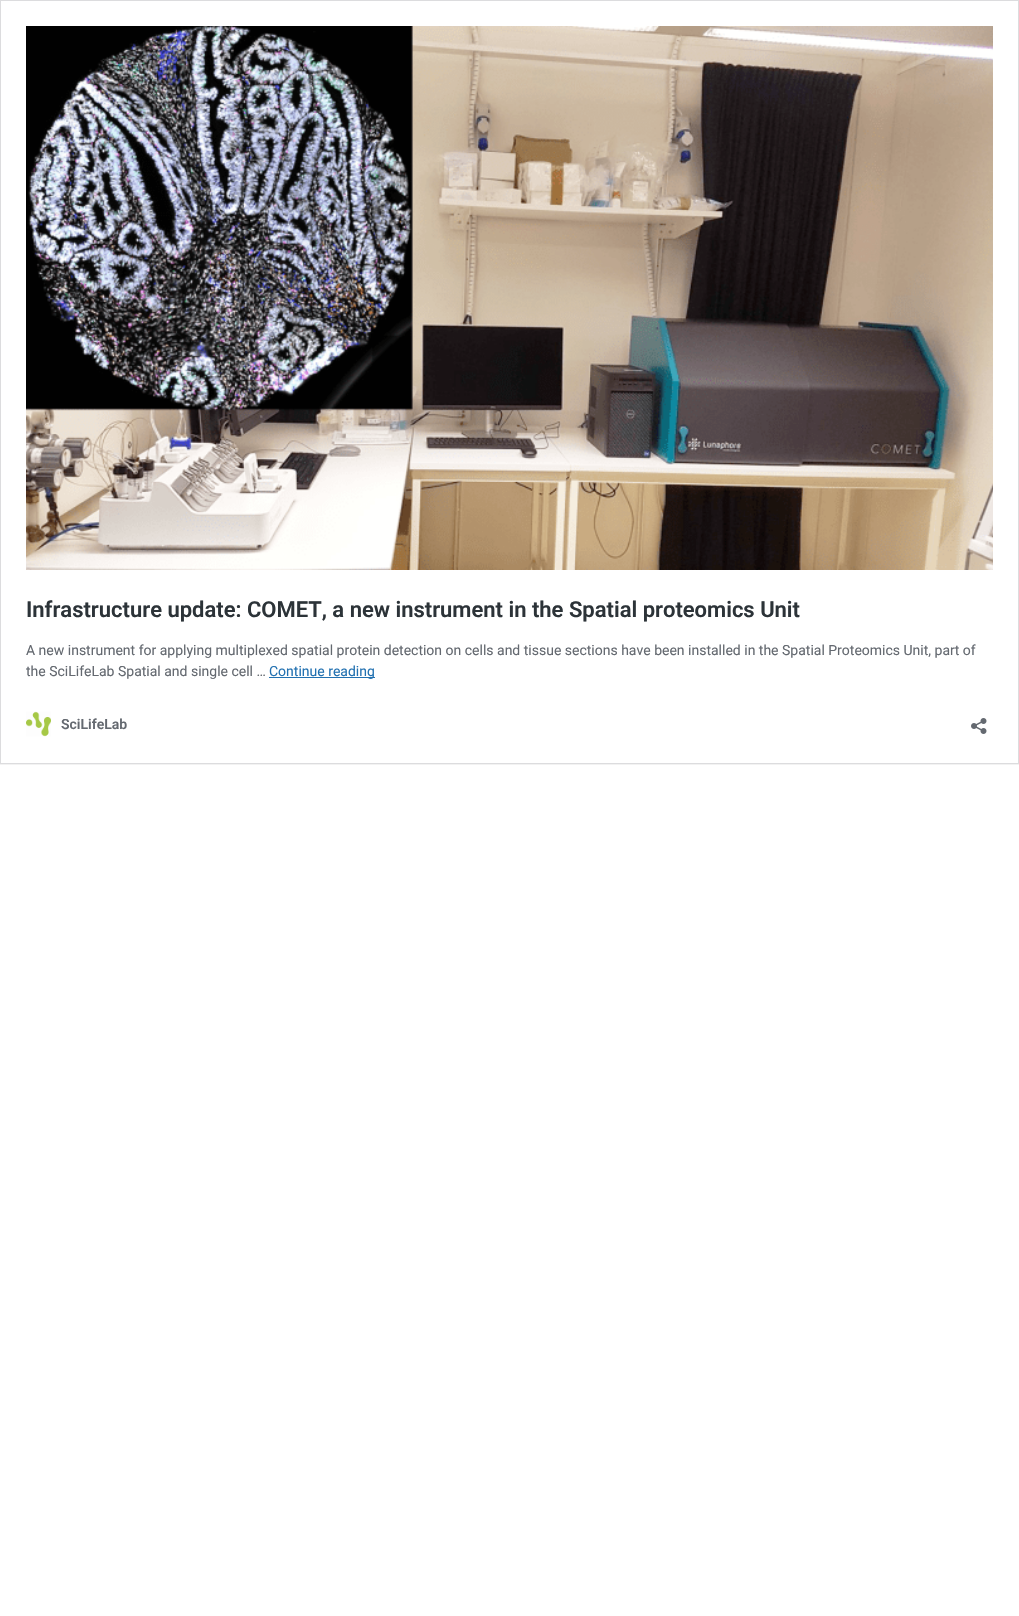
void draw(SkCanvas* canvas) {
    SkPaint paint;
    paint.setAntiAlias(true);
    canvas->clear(0xFFFFFFFF);
    canvas->save();
    canvas->clipRect(SkRect::MakeXYWH(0, 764, 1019, 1));
    paint.setColor(0x0D000000);
    paint.setMaskFilter(SkMaskFilter::MakeBlur(kNormal_SkBlurStyle, 0.5f));
    canvas->drawRect(SkRect::MakeXYWH(0, 1, 1019, 764), paint);
    paint.setMaskFilter(nullptr);
    canvas->restore();
    paint.setStyle(SkPaint::kStroke_Style);
    paint.setStrokeWidth(1);
    paint.setColor(0xFFDCDCDE);
    canvas->drawRect(SkRect::MakeXYWH(0.5f, 0.5f, 1018, 763), paint);
    canvas->drawImageRect(SkImages::DeferredFromEncodedData(SkData::MakeFromFileName("img1.png")), SkRect::MakeXYWH(26, 26, 967, 544), SkSamplingOptions());
    SkFont font1(fontMgr->matchFamilyStyle("Roboto", SkFontStyle(600, SkFontStyle::kNormal_Width, SkFontStyle::kUpright_Slant)), 22);
    font1.setSubpixel(true);
    paint.setStyle(SkPaint::kFill_Style);
    paint.setColor(0xFF2C3338);
    canvas->drawString("Infrastructure update: COMET, a new instrument in the Spatial proteomics Unit", 26, 617, font1, paint);
    SkFont font2(fontMgr->matchFamilyStyle("Roboto", SkFontStyle::Normal()), 14);
    font2.setSubpixel(true);
    paint.setColor(0xFF646970);
    canvas->drawString("A new instrument for applying multiplexed spatial protein detection on cells and tissue sections have been installed in the Spatial Proteomics Unit, part of", 26, 655, font2, paint);
    canvas->drawString("the SciLifeLab Spatial and single cell …", 26, 676, font2, paint);
    paint.setColor(0xFF2271B1);
    canvas->drawRect(SkRect::MakeXYWH(269, 677, 106, 1), paint);
    canvas->drawString("Continue reading", 269, 676, font2, paint);
    canvas->drawImageRect(SkImages::DeferredFromEncodedData(SkData::MakeFromFileName("img2.png")), SkRect::MakeXYWH(26, 711, 25, 26), SkSamplingOptions());
    SkFont font3(fontMgr->matchFamilyStyle("Roboto", SkFontStyle(600, SkFontStyle::kNormal_Width, SkFontStyle::kUpright_Slant)), 14);
    font3.setSubpixel(true);
    paint.setColor(0xFF646970);
    canvas->drawString("SciLifeLab", 61, 729, font3, paint);
    canvas->drawImageRect(SkImages::DeferredFromEncodedData(SkData::MakeFromFileName("img3.png")), SkRect::MakeXYWH(971, 718, 16, 16), SkSamplingOptions());
}
